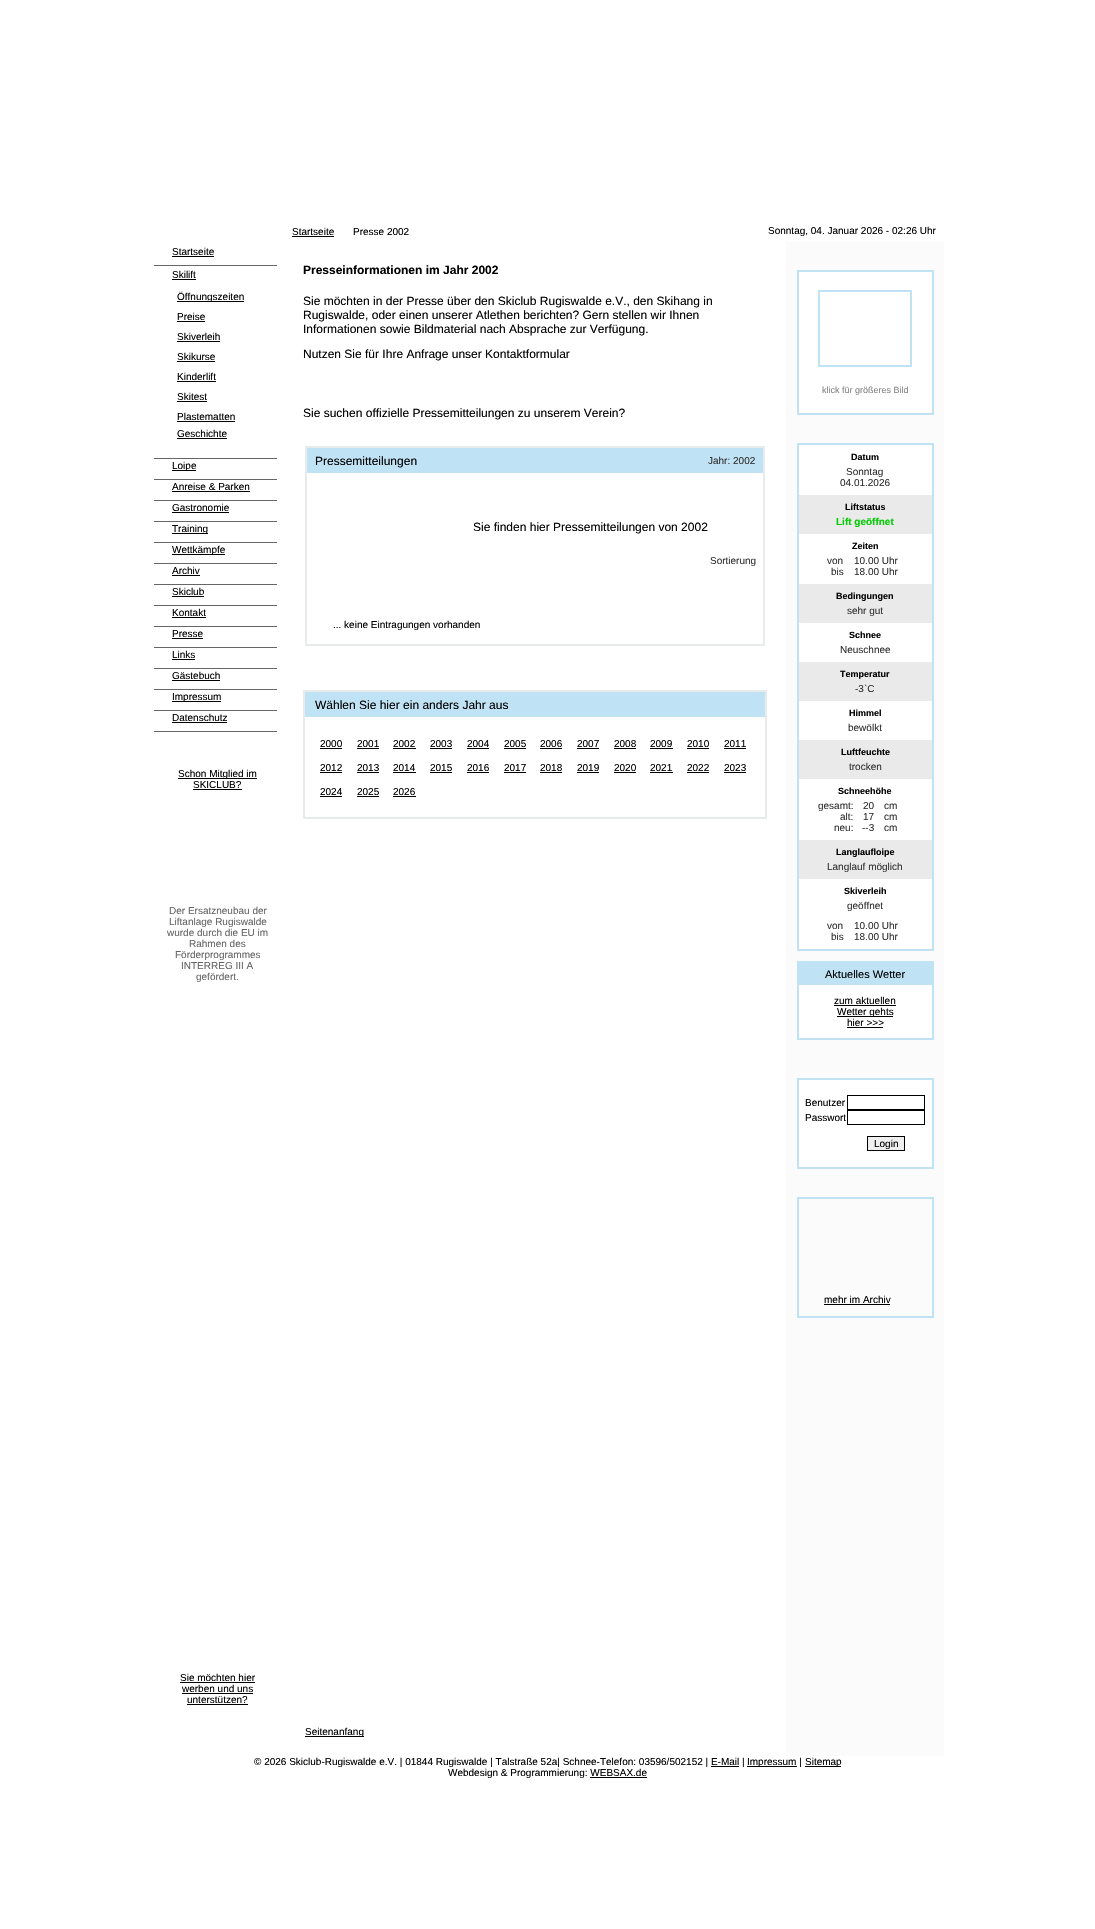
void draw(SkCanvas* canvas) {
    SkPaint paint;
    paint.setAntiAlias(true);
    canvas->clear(0xFFFFFFFF);
    SkFont font1(fontMgr->matchFamilyStyle("Liberation Sans", SkFontStyle::Normal()), 10);
    font1.setSubpixel(true);
    paint.setColor(0xFF000000);
    canvas->drawString("Startseite", 292, 235, font1, paint);
    canvas->drawRect(SkRect::MakeXYWH(292, 236, 42, 1), paint);
    canvas->drawString("Presse 2002", 353, 235, font1, paint);
    canvas->drawString("Sonntag, 04. Januar 2026 - 02:26 Uhr", 768, 234, font1, paint);
    canvas->drawString("Startseite", 172, 255, font1, paint);
    canvas->drawRect(SkRect::MakeXYWH(172, 256, 42, 1), paint);
    paint.setColor(0xFF666666);
    canvas->drawRect(SkRect::MakeXYWH(154, 265, 123, 1), paint);
    paint.setColor(0xFF000000);
    canvas->drawString("Skilift", 172, 278, font1, paint);
    canvas->drawRect(SkRect::MakeXYWH(172, 279, 24, 1), paint);
    canvas->drawRect(SkRect::MakeXYWH(177, 301, 67, 1), paint);
    canvas->drawString("Öffnungszeiten", 177, 300, font1, paint);
    canvas->drawString("Preise", 177, 320, font1, paint);
    canvas->drawRect(SkRect::MakeXYWH(177, 321, 28, 1), paint);
    canvas->drawString("Skiverleih", 177, 340, font1, paint);
    canvas->drawRect(SkRect::MakeXYWH(177, 341, 43, 1), paint);
    canvas->drawString("Skikurse", 177, 360, font1, paint);
    canvas->drawRect(SkRect::MakeXYWH(177, 361, 38, 1), paint);
    canvas->drawString("Kinderlift", 177, 380, font1, paint);
    canvas->drawRect(SkRect::MakeXYWH(177, 381, 39, 1), paint);
    canvas->drawString("Skitest", 177, 400, font1, paint);
    canvas->drawRect(SkRect::MakeXYWH(177, 401, 30, 1), paint);
    canvas->drawString("Plastematten", 177, 420, font1, paint);
    canvas->drawRect(SkRect::MakeXYWH(177, 421, 58, 1), paint);
    canvas->drawString("Geschichte", 177, 437, font1, paint);
    canvas->drawRect(SkRect::MakeXYWH(177, 438, 50, 1), paint);
    paint.setColor(0xFF666666);
    canvas->drawRect(SkRect::MakeXYWH(154, 458, 123, 1), paint);
    paint.setColor(0xFF000000);
    canvas->drawRect(SkRect::MakeXYWH(172, 470, 24, 1), paint);
    canvas->drawString("Loipe", 172, 469, font1, paint);
    paint.setColor(0xFF666666);
    canvas->drawRect(SkRect::MakeXYWH(154, 479, 123, 1), paint);
    paint.setColor(0xFF000000);
    canvas->drawString("Anreise & Parken", 172, 490, font1, paint);
    canvas->drawRect(SkRect::MakeXYWH(172, 491, 78, 1), paint);
    paint.setColor(0xFF666666);
    canvas->drawRect(SkRect::MakeXYWH(154, 500, 123, 1), paint);
    paint.setColor(0xFF000000);
    canvas->drawString("Gastronomie", 172, 511, font1, paint);
    canvas->drawRect(SkRect::MakeXYWH(172, 512, 57, 1), paint);
    paint.setColor(0xFF666666);
    canvas->drawRect(SkRect::MakeXYWH(154, 521, 123, 1), paint);
    paint.setColor(0xFF000000);
    canvas->drawRect(SkRect::MakeXYWH(172, 533, 36, 1), paint);
    canvas->drawString("Training", 172, 532, font1, paint);
    paint.setColor(0xFF666666);
    canvas->drawRect(SkRect::MakeXYWH(154, 542, 123, 1), paint);
    paint.setColor(0xFF000000);
    canvas->drawRect(SkRect::MakeXYWH(172, 554, 53, 1), paint);
    canvas->drawString("Wettkämpfe", 172, 553, font1, paint);
    paint.setColor(0xFF666666);
    canvas->drawRect(SkRect::MakeXYWH(154, 563, 123, 1), paint);
    paint.setColor(0xFF000000);
    canvas->drawString("Archiv", 172, 574, font1, paint);
    canvas->drawRect(SkRect::MakeXYWH(172, 575, 28, 1), paint);
    paint.setColor(0xFF666666);
    canvas->drawRect(SkRect::MakeXYWH(154, 584, 123, 1), paint);
    paint.setColor(0xFF000000);
    canvas->drawString("Skiclub", 172, 595, font1, paint);
    canvas->drawRect(SkRect::MakeXYWH(172, 596, 32, 1), paint);
    paint.setColor(0xFF666666);
    canvas->drawRect(SkRect::MakeXYWH(154, 605, 123, 1), paint);
    paint.setColor(0xFF000000);
    canvas->drawString("Kontakt", 172, 616, font1, paint);
    canvas->drawRect(SkRect::MakeXYWH(172, 617, 34, 1), paint);
    paint.setColor(0xFF666666);
    canvas->drawRect(SkRect::MakeXYWH(154, 626, 123, 1), paint);
    paint.setColor(0xFF000000);
    canvas->drawString("Presse", 172, 637, font1, paint);
    canvas->drawRect(SkRect::MakeXYWH(172, 638, 31, 1), paint);
    paint.setColor(0xFF666666);
    canvas->drawRect(SkRect::MakeXYWH(154, 647, 123, 1), paint);
    paint.setColor(0xFF000000);
    canvas->drawString("Links", 172, 658, font1, paint);
    canvas->drawRect(SkRect::MakeXYWH(172, 659, 23, 1), paint);
    paint.setColor(0xFF666666);
    canvas->drawRect(SkRect::MakeXYWH(154, 668, 123, 1), paint);
    paint.setColor(0xFF000000);
    canvas->drawString("Gästebuch", 172, 679, font1, paint);
    canvas->drawRect(SkRect::MakeXYWH(172, 680, 48, 1), paint);
    paint.setColor(0xFF666666);
    canvas->drawRect(SkRect::MakeXYWH(154, 689, 123, 1), paint);
    paint.setColor(0xFF000000);
    canvas->drawRect(SkRect::MakeXYWH(172, 701, 49, 1), paint);
    canvas->drawString("Impressum", 172, 700, font1, paint);
    paint.setColor(0xFF666666);
    canvas->drawRect(SkRect::MakeXYWH(154, 710, 123, 1), paint);
    paint.setColor(0xFF000000);
    canvas->drawString("Datenschutz", 172, 721, font1, paint);
    canvas->drawRect(SkRect::MakeXYWH(172, 722, 55, 1), paint);
    paint.setColor(0xFF666666);
    canvas->drawRect(SkRect::MakeXYWH(154, 731, 123, 1), paint);
    paint.setColor(0xFF000000);
    canvas->drawRect(SkRect::MakeXYWH(178, 778, 79, 1), paint);
    canvas->drawString("Schon Mitglied im", 178, 777, font1, paint);
    canvas->drawString("SKICLUB?", 193, 788, font1, paint);
    canvas->drawRect(SkRect::MakeXYWH(193, 789, 49, 1), paint);
    paint.setColor(0xFF666666);
    canvas->drawString("Der Ersatzneubau der", 169, 914, font1, paint);
    canvas->drawString("Liftanlage Rugiswalde", 169, 925, font1, paint);
    canvas->drawString("wurde durch die EU im", 167, 936, font1, paint);
    canvas->drawString("Rahmen des", 189, 947, font1, paint);
    canvas->drawString("Förderprogrammes", 175, 958, font1, paint);
    canvas->drawString("INTERREG III A", 181, 969, font1, paint);
    canvas->drawString("gefördert.", 196, 980, font1, paint);
    paint.setColor(0xFF000000);
    canvas->drawString("Sie möchten hier", 180, 1681, font1, paint);
    canvas->drawRect(SkRect::MakeXYWH(180, 1682, 75, 1), paint);
    canvas->drawString("werben und uns", 182, 1692, font1, paint);
    canvas->drawRect(SkRect::MakeXYWH(182, 1693, 71, 1), paint);
    canvas->drawString("unterstützen?", 187, 1703, font1, paint);
    canvas->drawRect(SkRect::MakeXYWH(187, 1704, 61, 1), paint);
    SkFont font2(fontMgr->matchFamilyStyle("Liberation Sans", SkFontStyle::Bold()), 12);
    font2.setSubpixel(true);
    canvas->drawString("Presseinformationen im Jahr 2002", 303, 274, font2, paint);
    SkFont font3(fontMgr->matchFamilyStyle("Liberation Sans", SkFontStyle::Normal()), 12);
    font3.setSubpixel(true);
    canvas->drawString("Sie möchten in der Presse über den Skiclub Rugiswalde e.V., den Skihang in", 303, 305, font3, paint);
    canvas->drawString("Rugiswalde, oder einen unserer Atlethen berichten? Gern stellen wir Ihnen", 303, 319, font3, paint);
    canvas->drawString("Informationen sowie Bildmaterial nach Absprache zur Verfügung.", 303, 333, font3, paint);
    canvas->drawString("Nutzen Sie für Ihre Anfrage unser Kontaktformular", 303, 358, font3, paint);
    canvas->drawString("Sie suchen offizielle Pressemitteilungen zu unserem Verein?", 303, 417, font3, paint);
    paint.setStyle(SkPaint::kStroke_Style);
    paint.setStrokeWidth(2);
    paint.setColor(0xFFE8EBEC);
    canvas->drawRect(SkRect::MakeXYWH(306, 447, 458, 198), paint);
    paint.setStyle(SkPaint::kFill_Style);
    paint.setColor(0xFFBFE2F4);
    canvas->drawRect(SkRect::MakeXYWH(307, 448, 456, 25), paint);
    paint.setColor(0xFF000000);
    canvas->drawString("Pressemitteilungen", 315, 465, font3, paint);
    paint.setColor(0xFF333333);
    canvas->drawString("Jahr: 2002", 708, 464, font1, paint);
    paint.setColor(0xFF000000);
    canvas->drawString("Sie finden hier Pressemitteilungen von 2002", 473, 531, font3, paint);
    paint.setColor(0xFF333333);
    canvas->drawString("Sortierung", 710, 564, font1, paint);
    paint.setColor(0xFF000000);
    canvas->drawString("... keine Eintragungen vorhanden", 333, 628, font1, paint);
    paint.setStyle(SkPaint::kStroke_Style);
    paint.setColor(0xFFE8EBEC);
    canvas->drawRect(SkRect::MakeXYWH(304, 691, 462, 127), paint);
    paint.setStyle(SkPaint::kFill_Style);
    paint.setColor(0xFFBFE2F4);
    canvas->drawRect(SkRect::MakeXYWH(305, 692, 460, 25), paint);
    paint.setColor(0xFF000000);
    canvas->drawString("Wählen Sie hier ein anders Jahr aus", 315, 709, font3, paint);
    canvas->drawString("2000", 320, 747, font1, paint);
    canvas->drawRect(SkRect::MakeXYWH(320, 748, 22, 1), paint);
    canvas->drawString("2001", 357, 747, font1, paint);
    canvas->drawRect(SkRect::MakeXYWH(357, 748, 22, 1), paint);
    canvas->drawString("2002", 393, 747, font1, paint);
    canvas->drawRect(SkRect::MakeXYWH(393, 748, 23, 1), paint);
    canvas->drawString("2003", 430, 747, font1, paint);
    canvas->drawRect(SkRect::MakeXYWH(430, 748, 22, 1), paint);
    canvas->drawString("2004", 467, 747, font1, paint);
    canvas->drawRect(SkRect::MakeXYWH(467, 748, 22, 1), paint);
    canvas->drawString("2005", 504, 747, font1, paint);
    canvas->drawRect(SkRect::MakeXYWH(504, 748, 22, 1), paint);
    canvas->drawString("2006", 540, 747, font1, paint);
    canvas->drawRect(SkRect::MakeXYWH(540, 748, 22, 1), paint);
    canvas->drawString("2007", 577, 747, font1, paint);
    canvas->drawRect(SkRect::MakeXYWH(577, 748, 22, 1), paint);
    canvas->drawString("2008", 614, 747, font1, paint);
    canvas->drawRect(SkRect::MakeXYWH(614, 748, 22, 1), paint);
    canvas->drawString("2009", 650, 747, font1, paint);
    canvas->drawRect(SkRect::MakeXYWH(650, 748, 23, 1), paint);
    canvas->drawString("2010", 687, 747, font1, paint);
    canvas->drawRect(SkRect::MakeXYWH(687, 748, 22, 1), paint);
    canvas->drawString("2011", 724, 747, font1, paint);
    canvas->drawRect(SkRect::MakeXYWH(724, 748, 22, 1), paint);
    canvas->drawString("2012", 320, 771, font1, paint);
    canvas->drawRect(SkRect::MakeXYWH(320, 772, 22, 1), paint);
    canvas->drawString("2013", 357, 771, font1, paint);
    canvas->drawRect(SkRect::MakeXYWH(357, 772, 22, 1), paint);
    canvas->drawString("2014", 393, 771, font1, paint);
    canvas->drawRect(SkRect::MakeXYWH(393, 772, 23, 1), paint);
    canvas->drawString("2015", 430, 771, font1, paint);
    canvas->drawRect(SkRect::MakeXYWH(430, 772, 22, 1), paint);
    canvas->drawString("2016", 467, 771, font1, paint);
    canvas->drawRect(SkRect::MakeXYWH(467, 772, 22, 1), paint);
    canvas->drawString("2017", 504, 771, font1, paint);
    canvas->drawRect(SkRect::MakeXYWH(504, 772, 22, 1), paint);
    canvas->drawString("2018", 540, 771, font1, paint);
    canvas->drawRect(SkRect::MakeXYWH(540, 772, 22, 1), paint);
    canvas->drawString("2019", 577, 771, font1, paint);
    canvas->drawRect(SkRect::MakeXYWH(577, 772, 22, 1), paint);
    canvas->drawString("2020", 614, 771, font1, paint);
    canvas->drawRect(SkRect::MakeXYWH(614, 772, 22, 1), paint);
    canvas->drawString("2021", 650, 771, font1, paint);
    canvas->drawRect(SkRect::MakeXYWH(650, 772, 23, 1), paint);
    canvas->drawString("2022", 687, 771, font1, paint);
    canvas->drawRect(SkRect::MakeXYWH(687, 772, 22, 1), paint);
    canvas->drawString("2023", 724, 771, font1, paint);
    canvas->drawRect(SkRect::MakeXYWH(724, 772, 22, 1), paint);
    canvas->drawString("2024", 320, 795, font1, paint);
    canvas->drawRect(SkRect::MakeXYWH(320, 796, 22, 1), paint);
    canvas->drawString("2025", 357, 795, font1, paint);
    canvas->drawRect(SkRect::MakeXYWH(357, 796, 22, 1), paint);
    canvas->drawString("2026", 393, 795, font1, paint);
    canvas->drawRect(SkRect::MakeXYWH(393, 796, 23, 1), paint);
    paint.setColor(0xFFFBFBFB);
    canvas->drawRect(SkRect::MakeXYWH(786, 242, 158, 1514), paint);
    paint.setStyle(SkPaint::kStroke_Style);
    paint.setColor(0xFFBFE2F4);
    canvas->drawRect(SkRect::MakeXYWH(798, 271, 135, 143), paint);
    paint.setStyle(SkPaint::kFill_Style);
    paint.setColor(0xFFFFFFFF);
    canvas->drawRect(SkRect::MakeXYWH(799, 272, 133, 141), paint);
    paint.setStyle(SkPaint::kStroke_Style);
    paint.setColor(0xFFBFE2F4);
    canvas->drawRect(SkRect::MakeXYWH(819, 291, 92, 75), paint);
    SkFont font4(fontMgr->matchFamilyStyle("Liberation Sans", SkFontStyle::Normal()), 9);
    font4.setSubpixel(true);
    paint.setStyle(SkPaint::kFill_Style);
    paint.setColor(0xFF858383);
    canvas->drawString("klick für größeres Bild", 822, 393, font4, paint);
    paint.setStyle(SkPaint::kStroke_Style);
    paint.setColor(0xFFBFE2F4);
    canvas->drawRect(SkRect::MakeXYWH(798, 444, 135, 506), paint);
    paint.setStyle(SkPaint::kFill_Style);
    paint.setColor(0xFFFFFFFF);
    canvas->drawRect(SkRect::MakeXYWH(799, 445, 133, 504), paint);
    SkFont font5(fontMgr->matchFamilyStyle("Liberation Sans", SkFontStyle::Bold()), 9);
    font5.setSubpixel(true);
    paint.setColor(0xFF000000);
    canvas->drawString("Datum", 851, 460, font5, paint);
    paint.setColor(0xFF333333);
    canvas->drawString("Sonntag", 846, 475, font1, paint);
    canvas->drawString("04.01.2026", 840, 486, font1, paint);
    paint.setColor(0xFFEAEAEA);
    canvas->drawRect(SkRect::MakeXYWH(799, 495, 133, 39), paint);
    paint.setColor(0xFF000000);
    canvas->drawString("Liftstatus", 845, 510, font5, paint);
    SkFont font6(fontMgr->matchFamilyStyle("Liberation Sans", SkFontStyle::Bold()), 10);
    font6.setSubpixel(true);
    paint.setColor(0xFF00CC00);
    canvas->drawString("Lift geöffnet", 836, 525, font6, paint);
    paint.setColor(0xFF000000);
    canvas->drawString("Zeiten", 852, 549, font5, paint);
    paint.setColor(0xFF333333);
    canvas->drawString("von", 827, 564, font1, paint);
    canvas->drawString("10.00 Uhr", 854, 564, font1, paint);
    canvas->drawString("bis", 831, 575, font1, paint);
    canvas->drawString("18.00 Uhr", 854, 575, font1, paint);
    paint.setColor(0xFFEAEAEA);
    canvas->drawRect(SkRect::MakeXYWH(799, 584, 133, 39), paint);
    paint.setColor(0xFF000000);
    canvas->drawString("Bedingungen", 836, 599, font5, paint);
    paint.setColor(0xFF333333);
    canvas->drawString("sehr gut", 847, 614, font1, paint);
    paint.setColor(0xFF000000);
    canvas->drawString("Schnee", 849, 638, font5, paint);
    paint.setColor(0xFF333333);
    canvas->drawString("Neuschnee", 840, 653, font1, paint);
    paint.setColor(0xFFEAEAEA);
    canvas->drawRect(SkRect::MakeXYWH(799, 662, 133, 39), paint);
    paint.setColor(0xFF000000);
    canvas->drawString("Temperatur", 840, 677, font5, paint);
    paint.setColor(0xFF333333);
    canvas->drawString("-3`C", 855, 692, font1, paint);
    paint.setColor(0xFF000000);
    canvas->drawString("Himmel", 849, 716, font5, paint);
    paint.setColor(0xFF333333);
    canvas->drawString("bewölkt", 848, 731, font1, paint);
    paint.setColor(0xFFEAEAEA);
    canvas->drawRect(SkRect::MakeXYWH(799, 740, 133, 39), paint);
    paint.setColor(0xFF000000);
    canvas->drawString("Luftfeuchte", 841, 755, font5, paint);
    paint.setColor(0xFF333333);
    canvas->drawString("trocken", 849, 770, font1, paint);
    paint.setColor(0xFF000000);
    canvas->drawString("Schneehöhe", 838, 794, font5, paint);
    paint.setColor(0xFF333333);
    canvas->drawString("gesamt:", 818, 809, font1, paint);
    canvas->drawString("20", 863, 809, font1, paint);
    canvas->drawString("cm", 884, 809, font1, paint);
    canvas->drawString("alt:", 840, 820, font1, paint);
    canvas->drawString("17", 863, 820, font1, paint);
    canvas->drawString("cm", 884, 820, font1, paint);
    canvas->drawString("neu:", 834, 831, font1, paint);
    canvas->drawString("--3", 862, 831, font1, paint);
    canvas->drawString("cm", 884, 831, font1, paint);
    paint.setColor(0xFFEAEAEA);
    canvas->drawRect(SkRect::MakeXYWH(799, 840, 133, 39), paint);
    paint.setColor(0xFF000000);
    canvas->drawString("Langlaufloipe", 836, 855, font5, paint);
    paint.setColor(0xFF333333);
    canvas->drawString("Langlauf möglich", 827, 870, font1, paint);
    paint.setColor(0xFF000000);
    canvas->drawString("Skiverleih", 844, 894, font5, paint);
    paint.setColor(0xFF333333);
    canvas->drawString("geöffnet", 847, 909, font1, paint);
    canvas->drawString("von", 827, 929, font1, paint);
    canvas->drawString("10.00 Uhr", 854, 929, font1, paint);
    canvas->drawString("bis", 831, 940, font1, paint);
    canvas->drawString("18.00 Uhr", 854, 940, font1, paint);
    paint.setStyle(SkPaint::kStroke_Style);
    paint.setColor(0xFFBFE2F4);
    canvas->drawRect(SkRect::MakeXYWH(798, 962, 135, 77), paint);
    paint.setStyle(SkPaint::kFill_Style);
    canvas->drawRect(SkRect::MakeXYWH(799, 963, 133, 22), paint);
    SkFont font7(fontMgr->matchFamilyStyle("Liberation Sans", SkFontStyle::Normal()), 11);
    font7.setSubpixel(true);
    paint.setColor(0xFF000000);
    canvas->drawString("Aktuelles Wetter", 825, 978, font7, paint);
    paint.setColor(0xFFFFFFFF);
    canvas->drawRect(SkRect::MakeXYWH(799, 985, 133, 53), paint);
    paint.setColor(0xFF000000);
    canvas->drawString("zum aktuellen", 834, 1004, font1, paint);
    canvas->drawRect(SkRect::MakeXYWH(834, 1005, 62, 1), paint);
    canvas->drawRect(SkRect::MakeXYWH(837, 1016, 56, 1), paint);
    canvas->drawString("Wetter gehts", 837, 1015, font1, paint);
    canvas->drawString("hier >>>", 847, 1026, font1, paint);
    canvas->drawRect(SkRect::MakeXYWH(847, 1027, 36, 1), paint);
    paint.setStyle(SkPaint::kStroke_Style);
    paint.setColor(0xFFBFE2F4);
    canvas->drawRect(SkRect::MakeXYWH(798, 1079, 135, 89), paint);
    paint.setStyle(SkPaint::kFill_Style);
    paint.setColor(0xFFFFFFFF);
    canvas->drawRect(SkRect::MakeXYWH(799, 1080, 133, 87), paint);
    paint.setColor(0xFF000000);
    canvas->drawString("Benutzer", 805, 1106, font1, paint);
    paint.setStyle(SkPaint::kStroke_Style);
    paint.setStrokeWidth(1);
    canvas->drawRect(SkRect::MakeXYWH(847.5f, 1095.5f, 77, 14), paint);
    paint.setStyle(SkPaint::kFill_Style);
    canvas->drawString("Passwort", 805, 1121, font1, paint);
    paint.setStyle(SkPaint::kStroke_Style);
    canvas->drawRect(SkRect::MakeXYWH(847.5f, 1110.5f, 77, 14), paint);
    paint.setStyle(SkPaint::kFill_Style);
    paint.setColor(0xFFEFEFEF);
    canvas->drawRect(SkRect::MakeXYWH(867.5f, 1136.5f, 37, 14), paint);
    paint.setStyle(SkPaint::kStroke_Style);
    paint.setColor(0xFF000000);
    canvas->drawRect(SkRect::MakeXYWH(867.5f, 1136.5f, 37, 14), paint);
    paint.setStyle(SkPaint::kFill_Style);
    canvas->drawString("Login", 874, 1147, font1, paint);
    paint.setStyle(SkPaint::kStroke_Style);
    paint.setStrokeWidth(2);
    paint.setColor(0xFFBFE2F4);
    canvas->drawRect(SkRect::MakeXYWH(798, 1198, 135, 119), paint);
    paint.setStyle(SkPaint::kFill_Style);
    paint.setColor(0xFF000000);
    canvas->drawString("mehr im Archiv", 824, 1303, font1, paint);
    canvas->drawRect(SkRect::MakeXYWH(824, 1304, 66, 1), paint);
    canvas->drawRect(SkRect::MakeXYWH(305, 1736, 59, 1), paint);
    canvas->drawString("Seitenanfang", 305, 1735, font1, paint);
    canvas->drawString("© 2026 Skiclub-Rugiswalde e.V. | 01844 Rugiswalde | Talstraße 52a| Schnee-Telefon: 03596/502152 | E-Mail |", 254, 1765, font1, paint);
    canvas->drawRect(SkRect::MakeXYWH(747, 1766, 50, 1), paint);
    canvas->drawString("Impressum |", 747, 1765, font1, paint);
    canvas->drawRect(SkRect::MakeXYWH(805, 1766, 36, 1), paint);
    canvas->drawString("Sitemap", 805, 1765, font1, paint);
    canvas->drawRect(SkRect::MakeXYWH(711, 1766, 28, 1), paint);
    canvas->drawString("Webdesign & Programmierung: WEBSAX.de", 448, 1776, font1, paint);
    canvas->drawRect(SkRect::MakeXYWH(590, 1777, 57, 1), paint);
}
